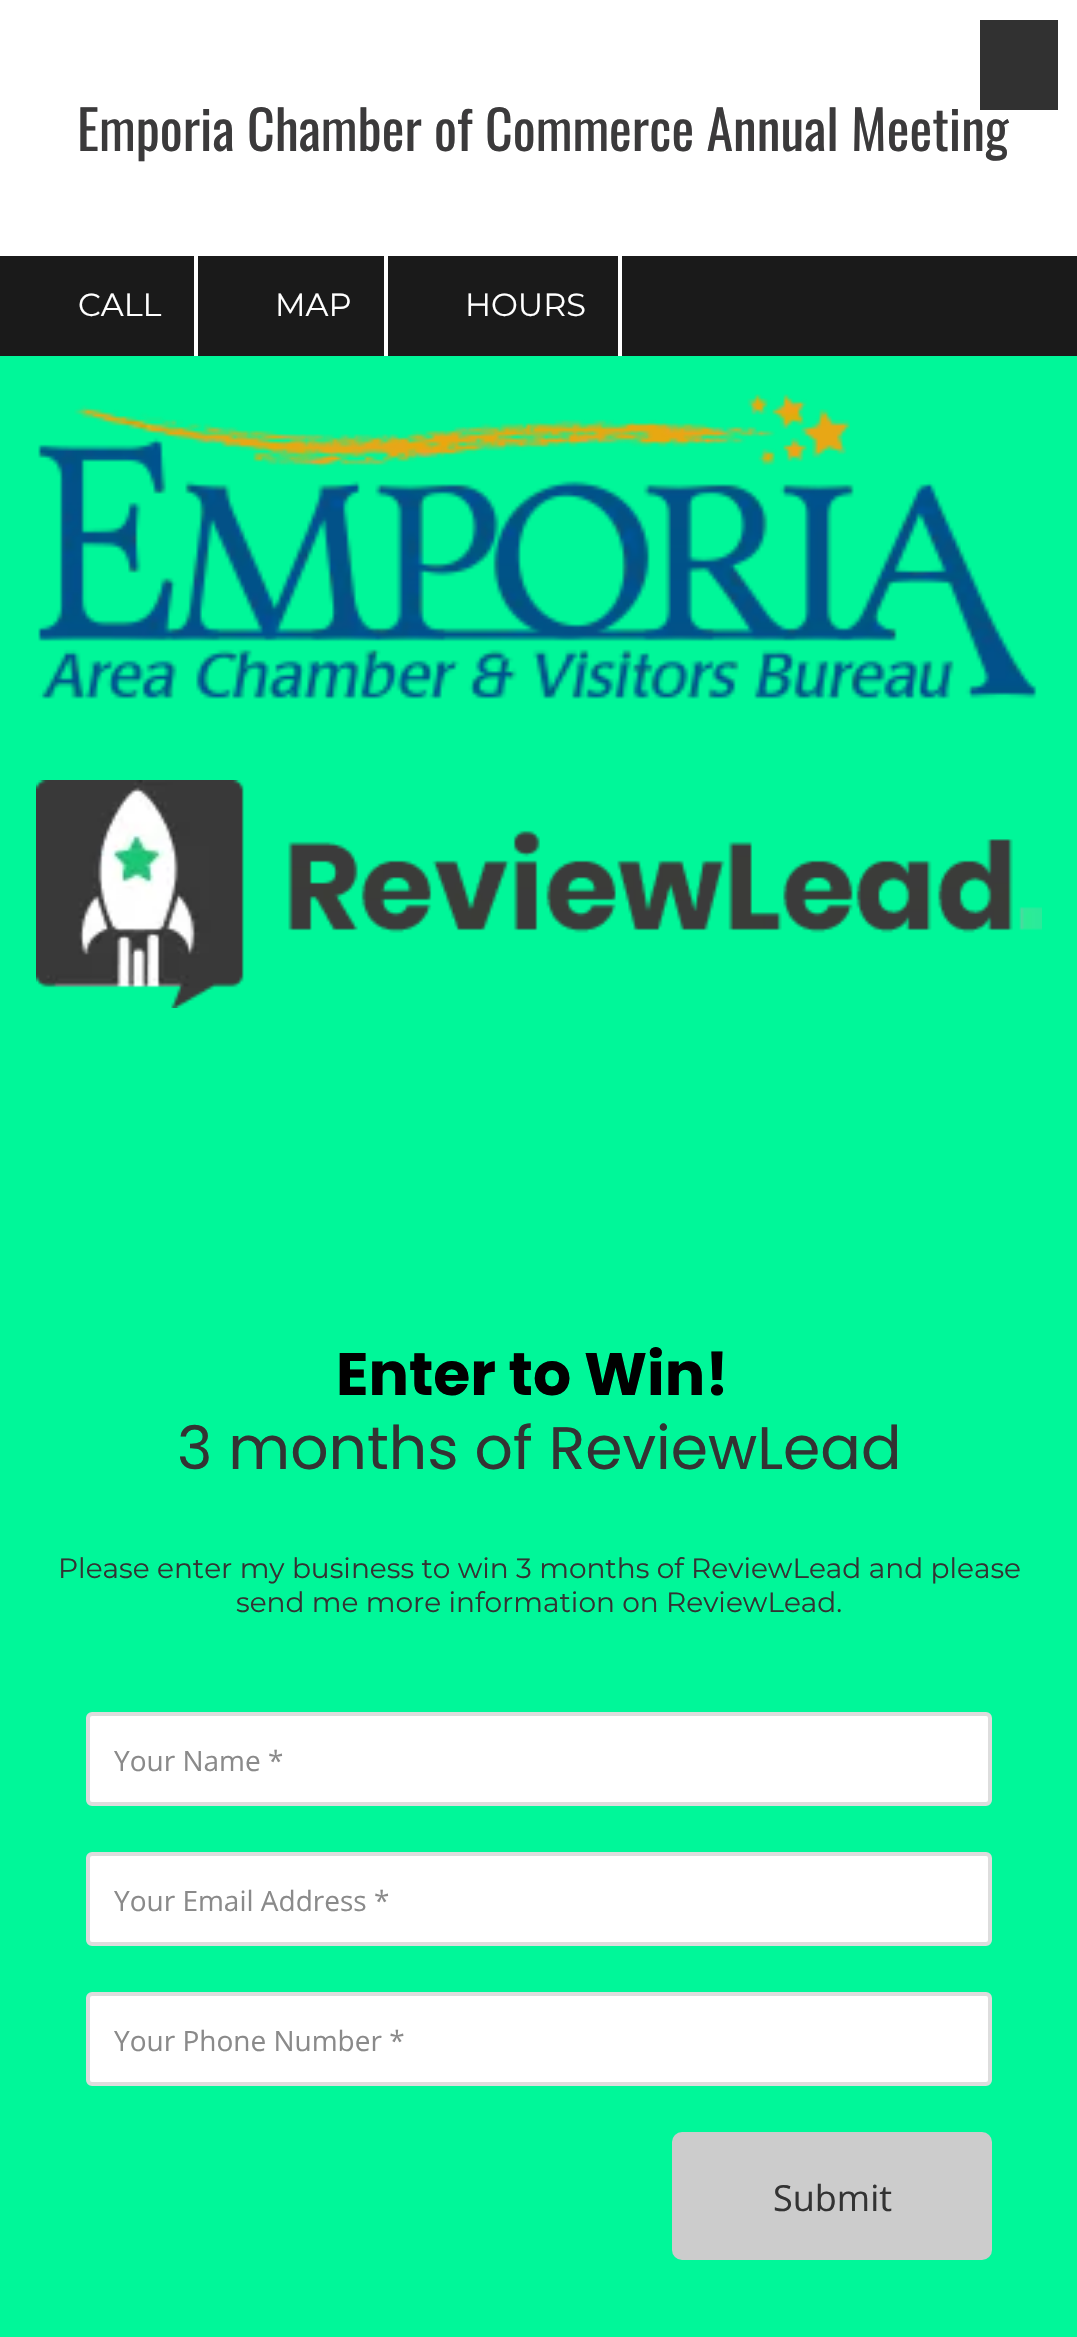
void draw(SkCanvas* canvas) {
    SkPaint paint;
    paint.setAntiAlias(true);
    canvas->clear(0xFFFFFFFF);
    SkFont font1(fontMgr->matchFamilyStyle("Oswald", SkFontStyle::Normal()), 54);
    font1.setSubpixel(true);
    paint.setColor(0xFF3B3A3B);
    canvas->drawString("Emporia Chamber of Commerce Annual Meeting", 77, 151, font1, paint);
    paint.setColor(0xFF313131);
    canvas->drawRect(SkRect::MakeXYWH(980, 20, 78, 90), paint);
    paint.setColor(0xFF1A1A1A);
    canvas->drawRect(SkRect::MakeXYWH(0, 256, 1077, 100), paint);
    paint.setColor(0xFFFFFFFF);
    canvas->drawRect(SkRect::MakeXYWH(194, 256, 4, 100), paint);
    SkFont font2(fontMgr->matchFamilyStyle("Montserrat", SkFontStyle::Normal()), 32);
    font2.setSubpixel(true);
    canvas->drawString("CALL", 78, 316, font2, paint);
    canvas->drawRect(SkRect::MakeXYWH(384, 256, 4, 100), paint);
    canvas->drawString("MAP", 275, 316, font2, paint);
    canvas->drawRect(SkRect::MakeXYWH(618, 256, 4, 100), paint);
    canvas->drawString("HOURS", 465, 316, font2, paint);
    paint.setColor(0xFF00F799);
    canvas->drawRect(SkRect::MakeXYWH(0, 356, 1077, 1981), paint);
    canvas->drawImageRect(SkImages::DeferredFromEncodedData(SkData::MakeFromFileName("img1.png")), SkRect::MakeXYWH(38, 394, 999, 305), SkSamplingOptions());
    canvas->drawImageRect(SkImages::DeferredFromEncodedData(SkData::MakeFromFileName("img2.png")), SkRect::MakeXYWH(36, 780, 1006, 228), SkSamplingOptions());
    SkFont font3(fontMgr->matchFamilyStyle("Poppins", SkFontStyle::Bold()), 60);
    font3.setSubpixel(true);
    paint.setColor(0xFF000000);
    canvas->drawString("Enter to Win!", 336, 1395, font3, paint);
    SkFont font4(fontMgr->matchFamilyStyle("Poppins", SkFontStyle::Normal()), 60);
    font4.setSubpixel(true);
    paint.setColor(0xFF333333);
    canvas->drawString("3 months of ReviewLead", 177, 1469, font4, paint);
    SkFont font5(fontMgr->matchFamilyStyle("Montserrat", SkFontStyle::Normal()), 28);
    font5.setSubpixel(true);
    canvas->drawString("Please enter my business to win 3 months of ReviewLead and please", 58, 1578, font5, paint);
    canvas->drawString("send me more information on ReviewLead.", 236, 1612, font5, paint);
    paint.setColor(0xFFFFFFFF);
    canvas->drawRoundRect(SkRect::MakeXYWH(88, 1714, 902, 90), 4, 4, paint);
    paint.setStyle(SkPaint::kStroke_Style);
    paint.setStrokeWidth(4);
    paint.setColor(0xFFDDDDDD);
    canvas->drawRoundRect(SkRect::MakeXYWH(88, 1714, 902, 90), 4, 4, paint);
    SkFont font6(fontMgr->matchFamilyStyle("Open Sans", SkFontStyle::Normal()), 28);
    font6.setSubpixel(true);
    paint.setStyle(SkPaint::kFill_Style);
    paint.setColor(0xFF8A8A8A);
    canvas->drawString("Your Name *", 114, 1771, font6, paint);
    paint.setColor(0xFFFFFFFF);
    canvas->drawRoundRect(SkRect::MakeXYWH(88, 1854, 902, 90), 4, 4, paint);
    paint.setStyle(SkPaint::kStroke_Style);
    paint.setColor(0xFFDDDDDD);
    canvas->drawRoundRect(SkRect::MakeXYWH(88, 1854, 902, 90), 4, 4, paint);
    paint.setStyle(SkPaint::kFill_Style);
    paint.setColor(0xFF8A8A8A);
    canvas->drawString("Your Email Address *", 114, 1911, font6, paint);
    paint.setColor(0xFFFFFFFF);
    canvas->drawRoundRect(SkRect::MakeXYWH(88, 1994, 902, 90), 4, 4, paint);
    paint.setStyle(SkPaint::kStroke_Style);
    paint.setColor(0xFFDDDDDD);
    canvas->drawRoundRect(SkRect::MakeXYWH(88, 1994, 902, 90), 4, 4, paint);
    paint.setStyle(SkPaint::kFill_Style);
    paint.setColor(0xFF8A8A8A);
    canvas->drawString("Your Phone Number *", 114, 2051, font6, paint);
    paint.setColor(0xFFCCCCCC);
    canvas->drawRoundRect(SkRect::MakeXYWH(672, 2132, 320, 128), 10, 10, paint);
    SkFont font7(fontMgr->matchFamilyStyle("Open Sans", SkFontStyle::Normal()), 36);
    font7.setSubpixel(true);
    paint.setColor(0xFF333333);
    canvas->drawString("Submit", 773, 2211, font7, paint);
}
